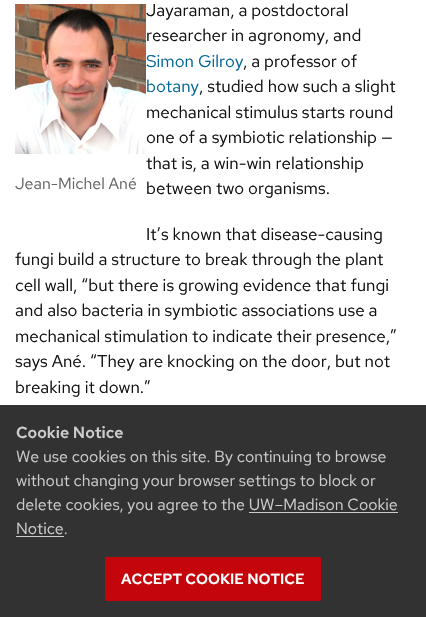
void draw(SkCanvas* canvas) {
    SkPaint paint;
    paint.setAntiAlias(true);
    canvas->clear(0xFFFFFFFF);
    paint.setColor(0xFF333233);
    canvas->drawRect(SkRect::MakeXYWH(0, 405, 426, 212), paint);
    canvas->drawImageRect(SkImages::DeferredFromEncodedData(SkData::MakeFromFileName("img1.png")), SkRect::MakeXYWH(15, 4, 131, 150), SkSamplingOptions());
    SkFont font1(fontMgr->matchFamilyStyle("Red Hat Text", SkFontStyle::Normal()), 16);
    font1.setSubpixel(true);
    paint.setColor(0xFF646569);
    canvas->drawString("Jean-Michel Ané", 15, 189, font1, paint);
    SkFont font2(fontMgr->matchFamilyStyle("Red Hat Text", SkFontStyle::Normal()), 17);
    font2.setSubpixel(true);
    paint.setColor(0xFF121212);
    canvas->drawString("Jayaraman, a postdoctoral", 146, 16, font2, paint);
    canvas->drawString("researcher in agronomy, and", 146, 41, font2, paint);
    paint.setColor(0xFF036796);
    canvas->drawString("Simon Gilroy", 146, 67, font2, paint);
    paint.setColor(0xFF121212);
    canvas->drawString(", a professor of", 243, 67, font2, paint);
    paint.setColor(0xFF036796);
    canvas->drawString("botany", 146, 92, font2, paint);
    paint.setColor(0xFF121212);
    canvas->drawString(", studied how such a slight", 199, 92, font2, paint);
    canvas->drawString("mechanical stimulus starts round", 146, 118, font2, paint);
    canvas->drawString("one of a symbiotic relationship —", 146, 143, font2, paint);
    canvas->drawString("that is, a win-win relationship", 146, 169, font2, paint);
    canvas->drawString("between two organisms.", 146, 194, font2, paint);
    canvas->drawString("It’s known that disease-causing", 146, 240, font2, paint);
    canvas->drawString("fungi build a structure to break through the plant", 15, 265, font2, paint);
    canvas->drawString("cell wall, “but there is growing evidence that fungi", 15, 291, font2, paint);
    canvas->drawString("and also bacteria in symbiotic associations use a", 15, 316, font2, paint);
    canvas->drawString("mechanical stimulation to indicate their presence,”", 15, 342, font2, paint);
    canvas->drawString("says Ané. “They are knocking on the door, but not", 15, 367, font2, paint);
    canvas->drawString("breaking it down.”", 15, 393, font2, paint);
    SkFont font3(fontMgr->matchFamilyStyle("Red Hat Text", SkFontStyle(600, SkFontStyle::kNormal_Width, SkFontStyle::kUpright_Slant)), 16);
    font3.setSubpixel(true);
    paint.setColor(0xFFCCCCCC);
    canvas->drawString("Cookie Notice", 16, 438, font3, paint);
    canvas->drawString("We use cookies on this site. By continuing to browse", 16, 462, font1, paint);
    canvas->drawString("without changing your browser settings to block or", 16, 486, font1, paint);
    canvas->drawString("delete cookies, you agree to the UW–Madison Cookie", 16, 510, font1, paint);
    canvas->drawString("Notice.", 16, 534, font1, paint);
    canvas->drawRect(SkRect::MakeXYWH(249, 512, 149, 1), paint);
    canvas->drawRect(SkRect::MakeXYWH(16, 536, 48, 1), paint);
    paint.setColor(0xFFC5050C);
    canvas->drawRoundRect(SkRect::MakeXYWH(105, 557, 216, 44), 2, 2, paint);
    SkFont font4(fontMgr->matchFamilyStyle("Red Hat Text", SkFontStyle(600, SkFontStyle::kNormal_Width, SkFontStyle::kUpright_Slant)), 14.75f);
    font4.setSubpixel(true);
    paint.setColor(0xFFFFFFFF);
    canvas->drawString("ACCEPT COOKIE NOTICE", 121, 584, font4, paint);
}
